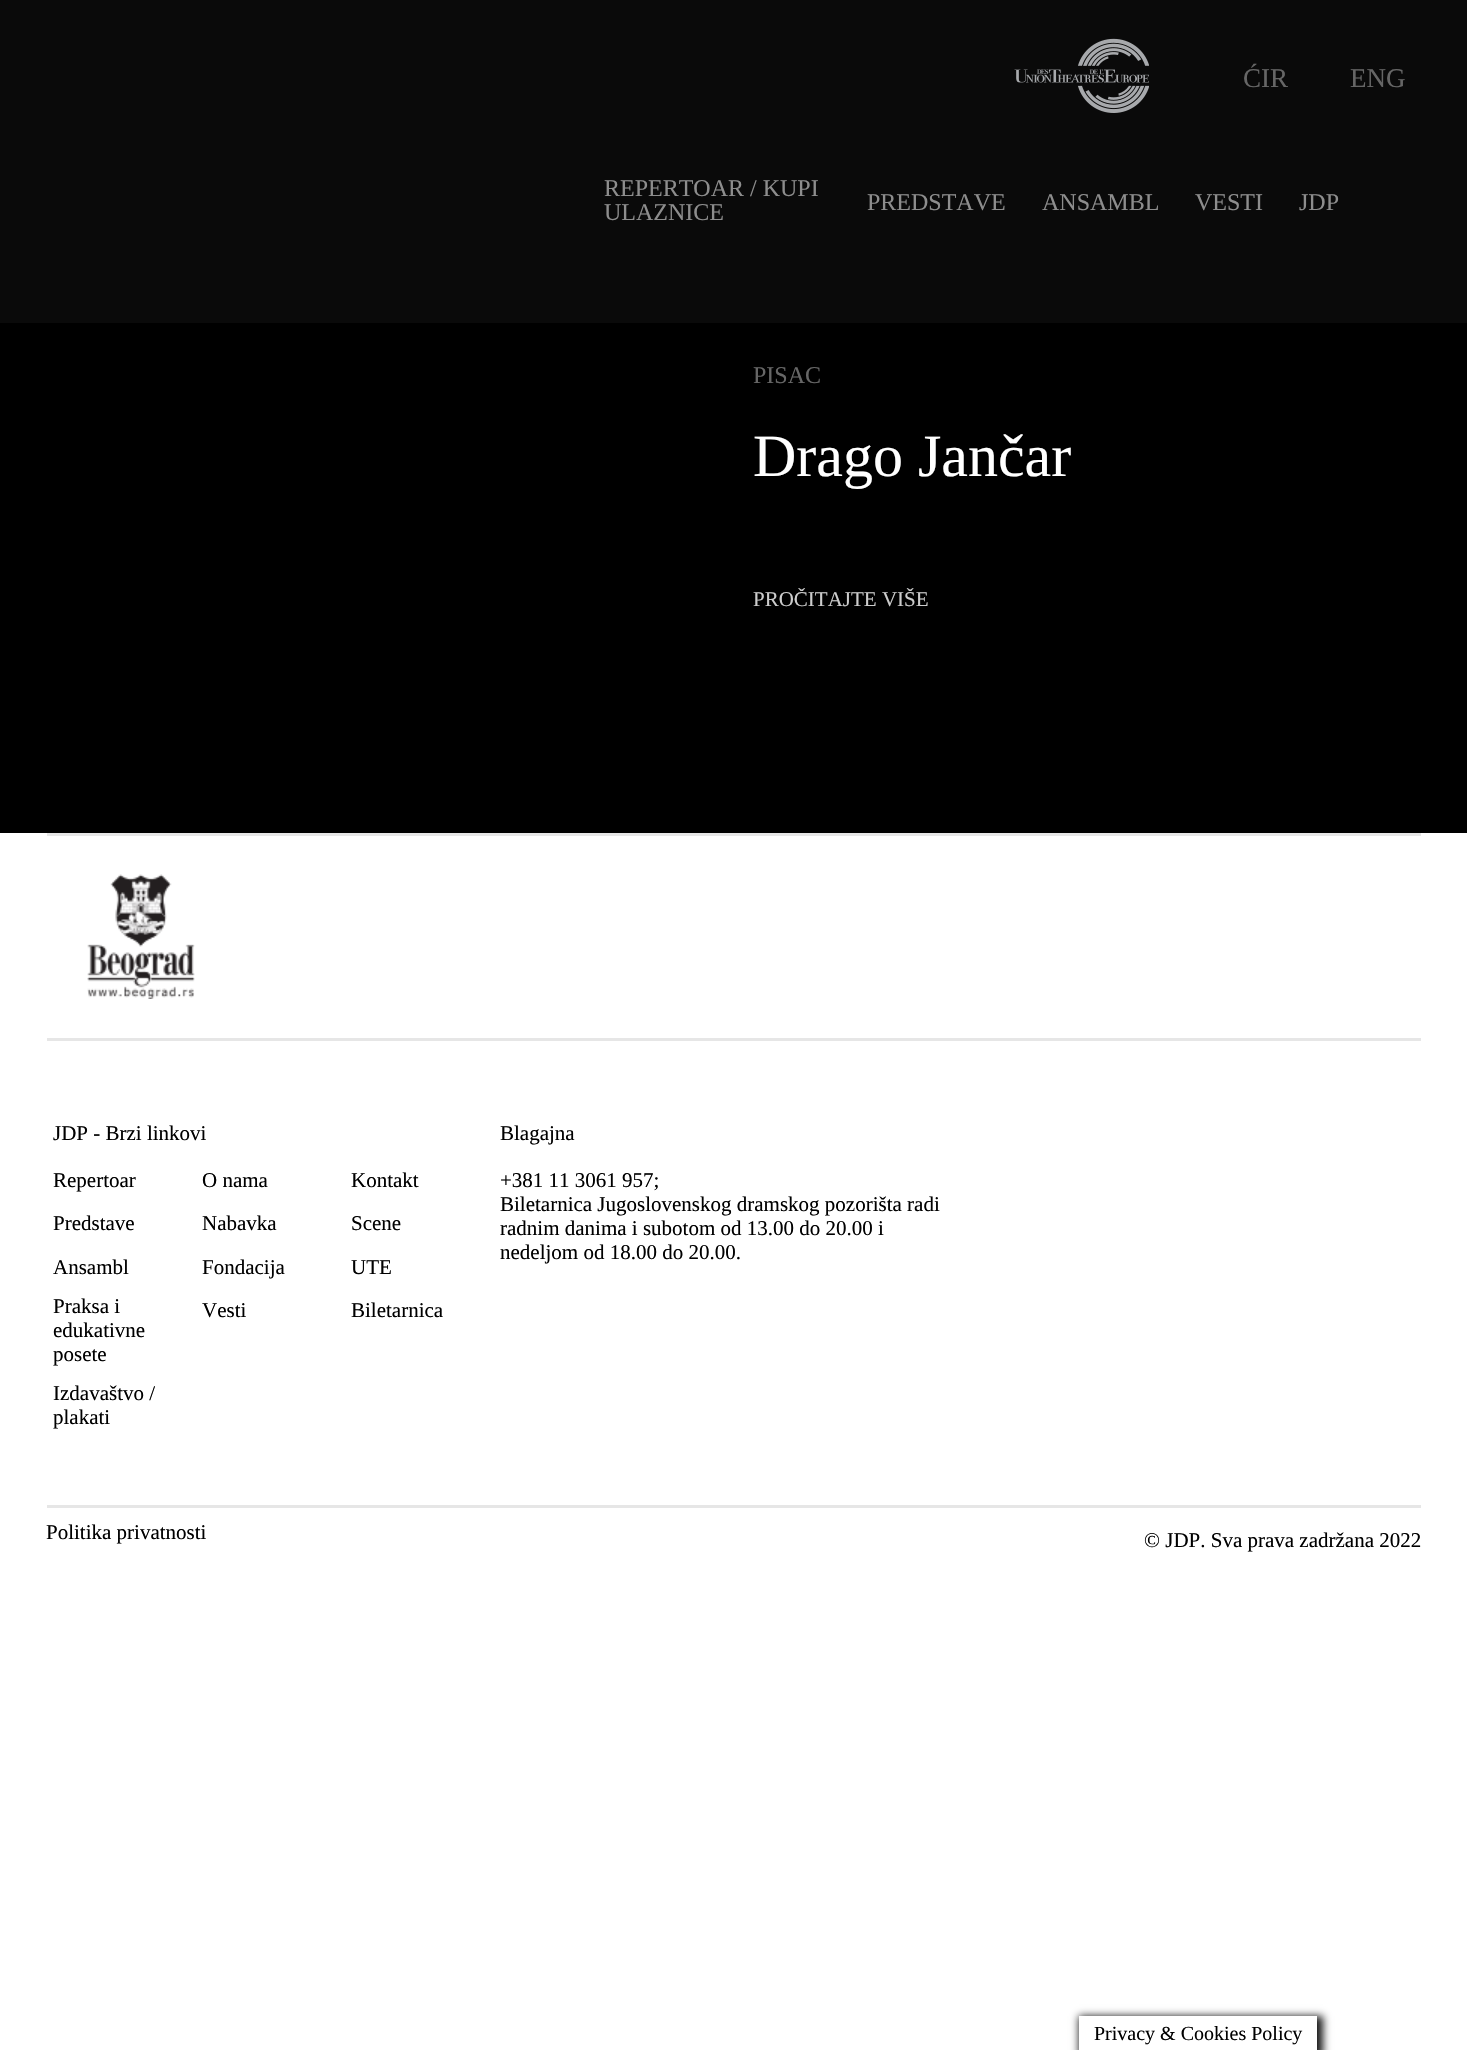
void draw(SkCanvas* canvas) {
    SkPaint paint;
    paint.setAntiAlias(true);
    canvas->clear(0xFFFFFFFF);
    paint.setColor(0xFF0A0A0A);
    canvas->drawRect(SkRect::MakeXYWH(0, 0, 1467, 323), paint);
    canvas->drawImageRect(SkImages::DeferredFromEncodedData(SkData::MakeFromFileName("img1.png")), SkRect::MakeXYWH(1014, 38, 135, 75), SkSamplingOptions());
    SkFont font1(fontMgr->matchFamilyStyle("Liberation Serif", SkFontStyle::Normal()), 27);
    font1.setSubpixel(true);
    paint.setColor(0xFF666666);
    canvas->drawString("ĆIR", 1243, 87, font1, paint);
    canvas->drawString("ENG", 1350, 87, font1, paint);
    SkFont font2(fontMgr->matchFamilyStyle("Liberation Serif", SkFontStyle::Normal()), 24);
    font2.setSubpixel(true);
    paint.setColor(0xFF8D8D8D);
    canvas->drawString("REPERTOAR / KUPI", 604, 196, font2, paint);
    canvas->drawString("ULAZNICE", 604, 220, font2, paint);
    canvas->drawString("PREDSTAVE", 867, 210, font2, paint);
    canvas->drawString("ANSAMBL", 1042, 210, font2, paint);
    canvas->drawString("VESTI", 1195, 210, font2, paint);
    canvas->drawString("JDP", 1299, 210, font2, paint);
    paint.setColor(0xFF000000);
    canvas->drawRect(SkRect::MakeXYWH(0, 323, 1467, 510), paint);
    paint.setColor(0xFF666666);
    canvas->drawString("PISAC", 753, 383, font2, paint);
    SkFont font3(fontMgr->matchFamilyStyle("Liberation Serif", SkFontStyle::Normal()), 60);
    font3.setSubpixel(true);
    paint.setColor(0xFFFFFFFF);
    canvas->drawString("Drago Jančar", 753, 476, font3, paint);
    SkFont font4(fontMgr->matchFamilyStyle("Liberation Serif", SkFontStyle::Normal()), 21);
    font4.setSubpixel(true);
    paint.setColor(0xFFCCCCCC);
    canvas->drawString("PROČITAJTE VIŠE", 753, 606, font4, paint);
    paint.setColor(0xFFE6E6E6);
    canvas->drawRect(SkRect::MakeXYWH(47, 833, 1374, 3), paint);
    canvas->drawRect(SkRect::MakeXYWH(47, 1038, 1374, 3), paint);
    canvas->drawImageRect(SkImages::DeferredFromEncodedData(SkData::MakeFromFileName("img2.png")), SkRect::MakeXYWH(87, 874, 108, 125), SkSamplingOptions());
    canvas->drawRect(SkRect::MakeXYWH(47, 1505, 1374, 3), paint);
    paint.setColor(0xFF000000);
    canvas->drawString("JDP - Brzi linkovi", 53, 1140, font4, paint);
    canvas->drawString("Repertoar", 53, 1187, font4, paint);
    canvas->drawString("O nama", 202, 1187, font4, paint);
    canvas->drawString("Kontakt", 351, 1187, font4, paint);
    canvas->drawString("Predstave", 53, 1230, font4, paint);
    canvas->drawString("Nabavka", 202, 1230, font4, paint);
    canvas->drawString("Scene", 351, 1230, font4, paint);
    canvas->drawString("Ansambl", 53, 1274, font4, paint);
    canvas->drawString("Fondacija", 202, 1274, font4, paint);
    canvas->drawString("UTE", 351, 1274, font4, paint);
    canvas->drawString("Praksa i", 53, 1313, font4, paint);
    canvas->drawString("edukativne", 53, 1337, font4, paint);
    canvas->drawString("posete", 53, 1361, font4, paint);
    canvas->drawString("Vesti", 202, 1317, font4, paint);
    canvas->drawString("Biletarnica", 351, 1317, font4, paint);
    canvas->drawString("Izdavaštvo /", 53, 1400, font4, paint);
    canvas->drawString("plakati", 53, 1424, font4, paint);
    canvas->drawString("Blagajna", 500, 1140, font4, paint);
    canvas->drawString("+381 11 3061 957;", 500, 1187, font4, paint);
    canvas->drawString("Biletarnica Jugoslovenskog dramskog pozorišta radi", 500, 1211, font4, paint);
    canvas->drawString("radnim danima i subotom od 13.00 do 20.00 i", 500, 1235, font4, paint);
    canvas->drawString("nedeljom od 18.00 do 20.00.", 500, 1259, font4, paint);
    canvas->drawString("Politika privatnosti", 46, 1539, font4, paint);
    canvas->drawString("© JDP. Sva prava zadržana 2022", 1144, 1547, font4, paint);
    canvas->save();
    canvas->clipPath(SkPathBuilder(SkPathFillType::kEvenOdd).moveTo(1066, 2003).lineTo(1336, 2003).lineTo(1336, 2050).lineTo(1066, 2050).close().moveTo(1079, 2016).lineTo(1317, 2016).lineTo(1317, 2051).lineTo(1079, 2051).close().detach(), true);
    paint.setColor(0xFF161616);
    paint.setMaskFilter(SkMaskFilter::MakeBlur(kNormal_SkBlurStyle, 4));
    canvas->drawRect(SkRect::MakeXYWH(1079, 2016, 244, 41), paint);
    paint.setMaskFilter(nullptr);
    canvas->restore();
    SkFont font5(fontMgr->matchFamilyStyle("Liberation Serif", SkFontStyle::Normal()), 20);
    font5.setSubpixel(true);
    paint.setColor(0xFF000000);
    canvas->drawString("Privacy & Cookies Policy", 1094, 2040, font5, paint);
}
